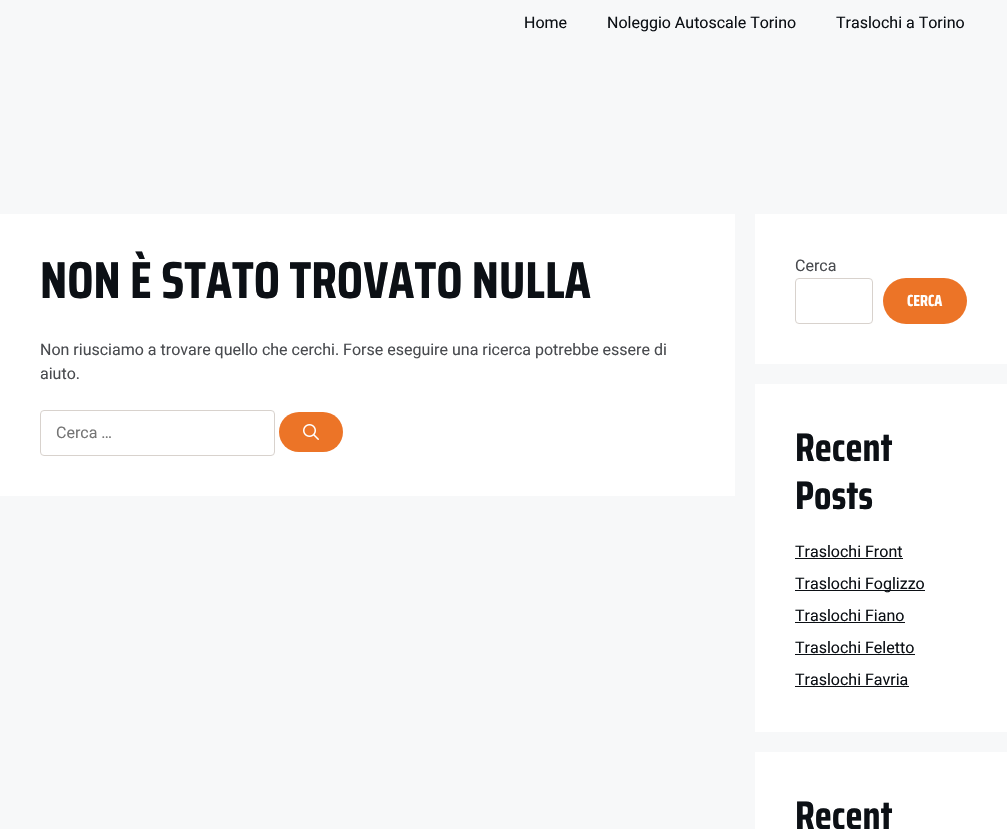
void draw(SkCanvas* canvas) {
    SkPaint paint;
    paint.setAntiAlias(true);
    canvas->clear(0xFFF7F8F9);
    SkFont font1(fontMgr->matchFamilyStyle("Roboto", SkFontStyle::Normal()), 16);
    font1.setSubpixel(true);
    paint.setColor(0xFF0C1015);
    canvas->drawString("Home", 524, 28, font1, paint);
    canvas->drawString("Noleggio Autoscale Torino", 607, 28, font1, paint);
    canvas->drawString("Traslochi a Torino", 836, 28, font1, paint);
    paint.setColor(0xFFFFFFFF);
    canvas->drawRect(SkRect::MakeXYWH(0, 214, 735, 282), paint);
    SkFont font2(fontMgr->matchFamilyStyle("Saira Condensed", SkFontStyle::Bold()), 52);
    font2.setSubpixel(true);
    paint.setColor(0xFF0C1015);
    canvas->drawString("NON È STATO TROVATO NULLA", 40, 298, font2, paint);
    paint.setColor(0xFF494B4F);
    canvas->drawString("Non riusciamo a trovare quello che cerchi. Forse eseguire una ricerca potrebbe essere di", 40, 355, font1, paint);
    canvas->drawString("aiuto.", 40, 379, font1, paint);
    paint.setStyle(SkPaint::kStroke_Style);
    paint.setStrokeWidth(1);
    paint.setColor(0xFFD8D2CD);
    canvas->drawRoundRect(SkRect::MakeXYWH(40.5f, 410.5f, 234, 45), 3.5f, 3.5f, paint);
    paint.setStyle(SkPaint::kFill_Style);
    paint.setColor(0xFF757575);
    canvas->drawString("Cerca …", 56, 438, font1, paint);
    paint.setColor(0xFFEC7427);
    canvas->drawRoundRect(SkRect::MakeXYWH(279, 412, 64, 40), 20, 20, paint);
    canvas->drawImageRect(SkImages::DeferredFromEncodedData(SkData::MakeFromFileName("img1.png")), SkRect::MakeXYWH(303, 424, 16, 16), SkSamplingOptions());
    paint.setColor(0xFFFFFFFF);
    canvas->drawRect(SkRect::MakeXYWH(755, 214, 252, 150), paint);
    paint.setColor(0xFF494B4F);
    canvas->drawString("Cerca", 795, 271, font1, paint);
    paint.setStyle(SkPaint::kStroke_Style);
    paint.setColor(0xFFD8D2CD);
    canvas->drawRoundRect(SkRect::MakeXYWH(795.5f, 278.5f, 77, 45), 3.5f, 3.5f, paint);
    paint.setStyle(SkPaint::kFill_Style);
    paint.setColor(0xFFEC7427);
    canvas->drawRoundRect(SkRect::MakeXYWH(883, 278, 84, 46), 23, 23, paint);
    SkFont font3(fontMgr->matchFamilyStyle("Saira Condensed", SkFontStyle::Bold()), 16);
    font3.setSubpixel(true);
    paint.setColor(0xFFFFFFFF);
    canvas->drawString("CERCA", 907, 306, font3, paint);
    canvas->drawRect(SkRect::MakeXYWH(755, 384, 252, 348), paint);
    SkFont font4(fontMgr->matchFamilyStyle("Saira Condensed", SkFontStyle::Bold()), 40);
    font4.setSubpixel(true);
    paint.setColor(0xFF0C1015);
    canvas->drawString("Recent", 795, 461, font4, paint);
    canvas->drawString("Posts", 795, 509, font4, paint);
    canvas->drawString("Traslochi Front", 795, 557, font1, paint);
    canvas->drawRect(SkRect::MakeXYWH(795, 558, 108, 1), paint);
    canvas->drawRect(SkRect::MakeXYWH(795, 590, 130, 1), paint);
    canvas->drawString("Traslochi Foglizzo", 795, 589, font1, paint);
    canvas->drawString("Traslochi Fiano", 795, 621, font1, paint);
    canvas->drawRect(SkRect::MakeXYWH(795, 622, 110, 1), paint);
    canvas->drawString("Traslochi Feletto", 795, 653, font1, paint);
    canvas->drawRect(SkRect::MakeXYWH(795, 654, 120, 1), paint);
    canvas->drawString("Traslochi Favria", 795, 685, font1, paint);
    canvas->drawRect(SkRect::MakeXYWH(795, 686, 114, 1), paint);
    paint.setColor(0xFFFFFFFF);
    canvas->drawRect(SkRect::MakeXYWH(755, 752, 252, 77), paint);
    paint.setColor(0xFF0C1015);
    canvas->drawString("Recent", 795, 829, font4, paint);
}
